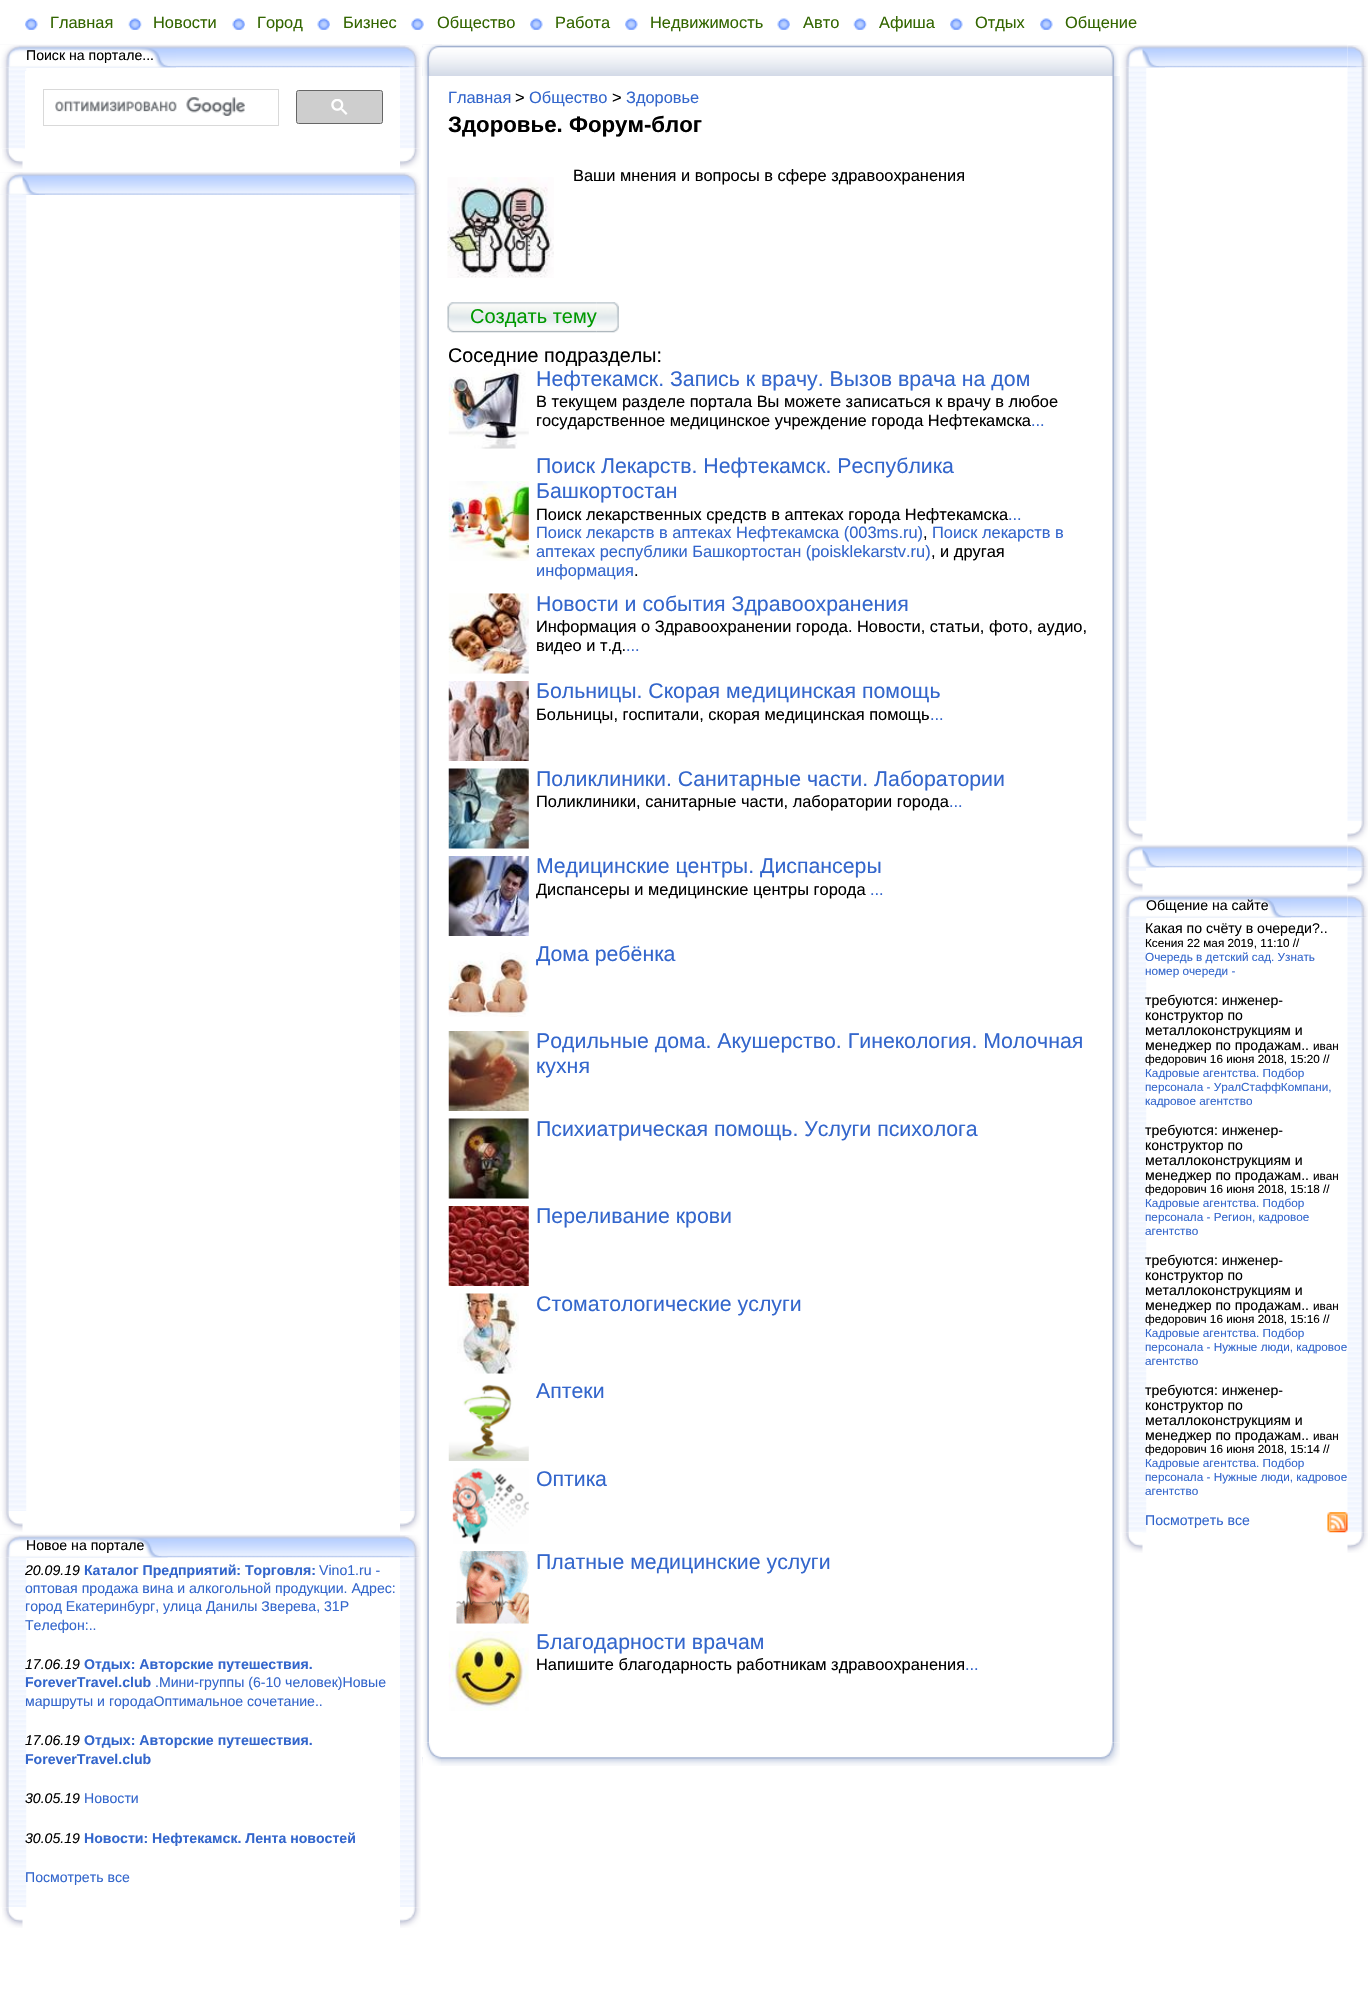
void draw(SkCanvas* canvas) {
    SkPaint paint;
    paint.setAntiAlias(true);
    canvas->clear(0xFFFFFFFF);
    canvas->drawImageRect(SkImages::DeferredFromEncodedData(SkData::MakeFromFileName("img1.png")), SkRect::MakeXYWH(25, 18, 13, 12), SkSamplingOptions());
    SkFont font1(fontMgr->matchFamilyStyle("Liberation Sans", SkFontStyle::Normal()), 16.4f);
    font1.setSubpixel(true);
    paint.setColor(0xFF336600);
    canvas->drawString("Главная", 50, 28, font1, paint);
    canvas->drawImageRect(SkImages::DeferredFromEncodedData(SkData::MakeFromFileName("img2.png")), SkRect::MakeXYWH(128, 18, 14, 12), SkSamplingOptions());
    canvas->drawString("Новости", 153, 28, font1, paint);
    canvas->drawImageRect(SkImages::DeferredFromEncodedData(SkData::MakeFromFileName("img3.png")), SkRect::MakeXYWH(232, 18, 13, 12), SkSamplingOptions());
    canvas->drawString("Город", 257, 28, font1, paint);
    canvas->drawImageRect(SkImages::DeferredFromEncodedData(SkData::MakeFromFileName("img3.png")), SkRect::MakeXYWH(317, 18, 13, 12), SkSamplingOptions());
    canvas->drawString("Бизнес", 343, 28, font1, paint);
    canvas->drawImageRect(SkImages::DeferredFromEncodedData(SkData::MakeFromFileName("img4.png")), SkRect::MakeXYWH(411, 18, 13, 12), SkSamplingOptions());
    canvas->drawString("Общество", 437, 28, font1, paint);
    canvas->drawImageRect(SkImages::DeferredFromEncodedData(SkData::MakeFromFileName("img1.png")), SkRect::MakeXYWH(530, 18, 13, 12), SkSamplingOptions());
    canvas->drawString("Работа", 555, 28, font1, paint);
    canvas->drawImageRect(SkImages::DeferredFromEncodedData(SkData::MakeFromFileName("img5.png")), SkRect::MakeXYWH(625, 18, 13, 12), SkSamplingOptions());
    canvas->drawString("Недвижимость", 650, 28, font1, paint);
    canvas->drawImageRect(SkImages::DeferredFromEncodedData(SkData::MakeFromFileName("img6.png")), SkRect::MakeXYWH(777, 18, 13, 12), SkSamplingOptions());
    canvas->drawString("Авто", 803, 28, font1, paint);
    canvas->drawImageRect(SkImages::DeferredFromEncodedData(SkData::MakeFromFileName("img2.png")), SkRect::MakeXYWH(853, 18, 14, 12), SkSamplingOptions());
    canvas->drawString("Афиша", 879, 28, font1, paint);
    canvas->drawImageRect(SkImages::DeferredFromEncodedData(SkData::MakeFromFileName("img1.png")), SkRect::MakeXYWH(950, 18, 13, 12), SkSamplingOptions());
    canvas->drawString("Отдых", 975, 28, font1, paint);
    canvas->drawImageRect(SkImages::DeferredFromEncodedData(SkData::MakeFromFileName("img1.png")), SkRect::MakeXYWH(1040, 18, 13, 12), SkSamplingOptions());
    canvas->drawString("Общение", 1065, 28, font1, paint);
    canvas->drawImageRect(SkImages::DeferredFromEncodedData(SkData::MakeFromFileName("img7.png")), SkRect::MakeXYWH(0, 44, 400, 24), SkSamplingOptions());
    canvas->drawImageRect(SkImages::DeferredFromEncodedData(SkData::MakeFromFileName("img8.png")), SkRect::MakeXYWH(0, 47, 176, 21), SkSamplingOptions());
    canvas->drawImageRect(SkImages::DeferredFromEncodedData(SkData::MakeFromFileName("img9.png")), SkRect::MakeXYWH(0, 45, 19, 22), SkSamplingOptions());
    SkFont font2(fontMgr->matchFamilyStyle("Liberation Sans", SkFontStyle::Normal()), 14.1f);
    font2.setSubpixel(true);
    paint.setColor(0xFF000000);
    canvas->drawString("Поиск на портале...", 26, 60, font2, paint);
    canvas->drawImageRect(SkImages::DeferredFromEncodedData(SkData::MakeFromFileName("img14.png")), SkRect::MakeXYWH(400, 67, 21, 82), SkSamplingOptions());
    canvas->drawImageRect(SkImages::DeferredFromEncodedData(SkData::MakeFromFileName("img32.png")), SkRect::MakeXYWH(422, 44, 698, 32), SkSamplingOptions());
    canvas->drawImageRect(SkImages::DeferredFromEncodedData(SkData::MakeFromFileName("img10.png")), SkRect::MakeXYWH(400, 45, 23, 23), SkSamplingOptions());
    canvas->drawImageRect(SkImages::DeferredFromEncodedData(SkData::MakeFromFileName("img11.png")), SkRect::MakeXYWH(0, 67, 27, 82), SkSamplingOptions());
    paint.setColor(0xFFFFFFFF);
    canvas->drawRect(SkRect::MakeXYWH(25, 71, 2, 78), paint);
    paint.setStyle(SkPaint::kStroke_Style);
    paint.setStrokeWidth(1);
    paint.setColor(0xFFD9D9D9);
    canvas->drawRect(SkRect::MakeXYWH(43.5f, 89.5f, 235, 36), paint);
    canvas->drawImageRect(SkImages::DeferredFromEncodedData(SkData::MakeFromFileName("img12.png")), SkRect::MakeXYWH(55, 97, 190, 19), SkSamplingOptions());
    paint.setStyle(SkPaint::kFill_Style);
    paint.setColor(0xFFCECECE);
    canvas->drawRoundRect(SkRect::MakeXYWH(296.5f, 90.5f, 86, 33), 2, 2, paint);
    paint.setStyle(SkPaint::kStroke_Style);
    paint.setColor(0xFF666666);
    canvas->drawRoundRect(SkRect::MakeXYWH(296.5f, 90.5f, 86, 33), 2, 2, paint);
    canvas->drawImageRect(SkImages::DeferredFromEncodedData(SkData::MakeFromFileName("img13.png")), SkRect::MakeXYWH(331, 99, 17, 16), SkSamplingOptions());
    canvas->drawImageRect(SkImages::DeferredFromEncodedData(SkData::MakeFromFileName("img15.png")), SkRect::MakeXYWH(2, 148, 21, 21), SkSamplingOptions());
    canvas->drawImageRect(SkImages::DeferredFromEncodedData(SkData::MakeFromFileName("img16.png")), SkRect::MakeXYWH(400, 148, 21, 21), SkSamplingOptions());
    canvas->drawImageRect(SkImages::DeferredFromEncodedData(SkData::MakeFromFileName("img17.png")), SkRect::MakeXYWH(0, 172, 400, 23), SkSamplingOptions());
    canvas->drawImageRect(SkImages::DeferredFromEncodedData(SkData::MakeFromFileName("img18.png")), SkRect::MakeXYWH(0, 175, 45, 20), SkSamplingOptions());
    canvas->drawImageRect(SkImages::DeferredFromEncodedData(SkData::MakeFromFileName("img21.png")), SkRect::MakeXYWH(0, 194, 27, 1317), SkSamplingOptions());
    canvas->drawImageRect(SkImages::DeferredFromEncodedData(SkData::MakeFromFileName("img19.png")), SkRect::MakeXYWH(0, 172, 23, 23), SkSamplingOptions());
    canvas->drawImageRect(SkImages::DeferredFromEncodedData(SkData::MakeFromFileName("img22.png")), SkRect::MakeXYWH(400, 194, 21, 1317), SkSamplingOptions());
    canvas->drawImageRect(SkImages::DeferredFromEncodedData(SkData::MakeFromFileName("img20.png")), SkRect::MakeXYWH(400, 172, 21, 23), SkSamplingOptions());
    canvas->drawImageRect(SkImages::DeferredFromEncodedData(SkData::MakeFromFileName("img23.png")), SkRect::MakeXYWH(2, 1511, 21, 21), SkSamplingOptions());
    canvas->drawImageRect(SkImages::DeferredFromEncodedData(SkData::MakeFromFileName("img24.png")), SkRect::MakeXYWH(400, 1511, 21, 21), SkSamplingOptions());
    canvas->drawImageRect(SkImages::DeferredFromEncodedData(SkData::MakeFromFileName("img25.png")), SkRect::MakeXYWH(0, 1534, 400, 24), SkSamplingOptions());
    canvas->drawImageRect(SkImages::DeferredFromEncodedData(SkData::MakeFromFileName("img26.png")), SkRect::MakeXYWH(0, 1537, 168, 21), SkSamplingOptions());
    canvas->drawImageRect(SkImages::DeferredFromEncodedData(SkData::MakeFromFileName("img9.png")), SkRect::MakeXYWH(0, 1535, 19, 22), SkSamplingOptions());
    paint.setStyle(SkPaint::kFill_Style);
    paint.setColor(0xFF000000);
    canvas->drawString("Новое на портале", 26, 1550, font2, paint);
    canvas->drawImageRect(SkImages::DeferredFromEncodedData(SkData::MakeFromFileName("img29.png")), SkRect::MakeXYWH(400, 1557, 21, 351), SkSamplingOptions());
    canvas->drawImageRect(SkImages::DeferredFromEncodedData(SkData::MakeFromFileName("img27.png")), SkRect::MakeXYWH(400, 1535, 21, 23), SkSamplingOptions());
    canvas->drawImageRect(SkImages::DeferredFromEncodedData(SkData::MakeFromFileName("img28.png")), SkRect::MakeXYWH(0, 1557, 27, 351), SkSamplingOptions());
    SkFont font3(fontMgr->matchFamilyStyle("Liberation Sans", SkFontStyle::Italic()), 14.1f);
    font3.setSubpixel(true);
    canvas->drawString("20.09.19", 25, 1575, font3, paint);
    SkFont font4(fontMgr->matchFamilyStyle("Liberation Sans", SkFontStyle::Bold()), 14.1f);
    font4.setSubpixel(true);
    paint.setColor(0xFF3366CC);
    canvas->drawString("Каталог Предприятий: Торговля:", 84, 1575, font4, paint);
    canvas->drawString("Vino1.ru -", 319, 1575, font2, paint);
    canvas->drawString("оптовая продажа вина и алкогольной продукции. Адрес:", 25, 1593, font2, paint);
    canvas->drawString("город Екатеринбург, улица Данилы Зверева, 31Р", 25, 1611, font2, paint);
    canvas->drawString("Телефон:..", 25, 1630, font2, paint);
    paint.setColor(0xFF000000);
    canvas->drawString("17.06.19", 25, 1669, font3, paint);
    paint.setColor(0xFF3366CC);
    canvas->drawString("Отдых: Авторские путешествия.", 84, 1669, font4, paint);
    canvas->drawString("ForeverTravel.club", 25, 1687, font4, paint);
    canvas->drawString(".Мини-группы (6-10 человек)Новые", 155, 1687, font2, paint);
    canvas->drawString("маршруты и городаОптимальное сочетание..", 25, 1706, font2, paint);
    paint.setColor(0xFF000000);
    canvas->drawString("17.06.19", 25, 1745, font3, paint);
    paint.setColor(0xFF3366CC);
    canvas->drawString("Отдых: Авторские путешествия.", 84, 1745, font4, paint);
    canvas->drawString("ForeverTravel.club", 25, 1764, font4, paint);
    paint.setColor(0xFF000000);
    canvas->drawString("30.05.19", 25, 1803, font3, paint);
    paint.setColor(0xFF3366CC);
    canvas->drawString("Новости", 84, 1803, font2, paint);
    paint.setColor(0xFF000000);
    canvas->drawString("30.05.19", 25, 1843, font3, paint);
    paint.setColor(0xFF3366CC);
    canvas->drawString("Новости: Нефтекамск. Лента новостей", 84, 1843, font4, paint);
    canvas->drawString("Посмотреть все", 25, 1882, font2, paint);
    canvas->drawImageRect(SkImages::DeferredFromEncodedData(SkData::MakeFromFileName("img30.png")), SkRect::MakeXYWH(2, 1907, 21, 21), SkSamplingOptions());
    canvas->drawImageRect(SkImages::DeferredFromEncodedData(SkData::MakeFromFileName("img31.png")), SkRect::MakeXYWH(400, 1907, 21, 21), SkSamplingOptions());
    canvas->drawImageRect(SkImages::DeferredFromEncodedData(SkData::MakeFromFileName("img33.png")), SkRect::MakeXYWH(1099, 44, 21, 32), SkSamplingOptions());
    canvas->drawImageRect(SkImages::DeferredFromEncodedData(SkData::MakeFromFileName("img34.png")), SkRect::MakeXYWH(422, 44, 20, 32), SkSamplingOptions());
    canvas->drawImageRect(SkImages::DeferredFromEncodedData(SkData::MakeFromFileName("img35.png")), SkRect::MakeXYWH(423, 76, 6, 1667), SkSamplingOptions());
    canvas->drawImageRect(SkImages::DeferredFromEncodedData(SkData::MakeFromFileName("img36.png")), SkRect::MakeXYWH(1112, 76, 8, 1667), SkSamplingOptions());
    canvas->drawString("Главная", 448, 103, font1, paint);
    paint.setColor(0xFF000000);
    canvas->drawString(">", 515, 103, font1, paint);
    paint.setColor(0xFF3366CC);
    canvas->drawString("Общество", 529, 103, font1, paint);
    paint.setColor(0xFF000000);
    canvas->drawString(">", 612, 103, font1, paint);
    paint.setColor(0xFF3366CC);
    canvas->drawString("Здоровье", 626, 103, font1, paint);
    SkFont font5(fontMgr->matchFamilyStyle("Liberation Sans", SkFontStyle::Bold()), 22.25f);
    font5.setSubpixel(true);
    paint.setColor(0xFF000000);
    canvas->drawString("Здоровье. Форум-блог", 448, 132, font5, paint);
    canvas->drawImageRect(SkImages::DeferredFromEncodedData(SkData::MakeFromFileName("img37.png")), SkRect::MakeXYWH(447, 177, 107, 101), SkSamplingOptions());
    canvas->drawString("Ваши мнения и вопросы в сфере здравоохранения", 573, 181, font1, paint);
    canvas->drawImageRect(SkImages::DeferredFromEncodedData(SkData::MakeFromFileName("img38.png")), SkRect::MakeXYWH(596, 302, 23, 31), SkSamplingOptions());
    canvas->drawImageRect(SkImages::DeferredFromEncodedData(SkData::MakeFromFileName("img39.png")), SkRect::MakeXYWH(447, 302, 150, 31), SkSamplingOptions());
    SkFont font6(fontMgr->matchFamilyStyle("Liberation Sans", SkFontStyle::Normal()), 20);
    font6.setSubpixel(true);
    paint.setColor(0xFF009900);
    canvas->drawString("Создать тему", 470, 323, font6, paint);
    SkFont font7(fontMgr->matchFamilyStyle("Liberation Sans", SkFontStyle::Normal()), 19.75f);
    font7.setSubpixel(true);
    paint.setColor(0xFF000000);
    canvas->drawString("Соседние подразделы:", 448, 362, font7, paint);
    canvas->drawImageRect(SkImages::DeferredFromEncodedData(SkData::MakeFromFileName("img40.png")), SkRect::MakeXYWH(448, 368, 81, 81), SkSamplingOptions());
    SkFont font8(fontMgr->matchFamilyStyle("Liberation Sans", SkFontStyle::Normal()), 21.3f);
    font8.setSubpixel(true);
    paint.setColor(0xFF3366CC);
    canvas->drawString("Нефтекамск. Запись к врачу. Вызов врача на дом", 536, 386, font8, paint);
    paint.setColor(0xFF000000);
    canvas->drawString("В текущем разделе портала Вы можете записаться к врачу в любое", 536, 407, font1, paint);
    canvas->drawString("государственное медицинское учреждение города Нефтекамска", 536, 426, font1, paint);
    paint.setColor(0xFF3366CC);
    canvas->drawString("...", 1031, 426, font1, paint);
    canvas->drawImageRect(SkImages::DeferredFromEncodedData(SkData::MakeFromFileName("img41.png")), SkRect::MakeXYWH(448, 481, 81, 80), SkSamplingOptions());
    canvas->drawString("Поиск Лекарств. Нефтекамск. Республика", 536, 473, font8, paint);
    canvas->drawString("Башкортостан", 536, 498, font8, paint);
    paint.setColor(0xFF000000);
    canvas->drawString("Поиск лекарственных средств в аптеках города Нефтекамска", 536, 520, font1, paint);
    paint.setColor(0xFF3366CC);
    canvas->drawString("...", 1008, 520, font1, paint);
    canvas->drawString("Поиск лекарств в аптеках Нефтекамска (003ms.ru)", 536, 538, font1, paint);
    paint.setColor(0xFF000000);
    canvas->drawString(",", 923, 538, font1, paint);
    paint.setColor(0xFF3366CC);
    canvas->drawString("Поиск лекарств в", 932, 538, font1, paint);
    canvas->drawString("аптеках республики Башкортостан (poisklekarstv.ru)", 536, 557, font1, paint);
    paint.setColor(0xFF000000);
    canvas->drawString(", и другая", 931, 557, font1, paint);
    paint.setColor(0xFF3366CC);
    canvas->drawString("информация", 536, 576, font1, paint);
    paint.setColor(0xFF000000);
    canvas->drawString(".", 634, 576, font1, paint);
    canvas->drawImageRect(SkImages::DeferredFromEncodedData(SkData::MakeFromFileName("img42.png")), SkRect::MakeXYWH(448, 593, 81, 81), SkSamplingOptions());
    paint.setColor(0xFF3366CC);
    canvas->drawString("Новости и события Здравоохранения", 536, 611, font8, paint);
    paint.setColor(0xFF000000);
    canvas->drawString("Информация о Здравоохранении города. Новости, статьи, фото, аудио,", 536, 632, font1, paint);
    canvas->drawString("видео и т.д.", 536, 651, font1, paint);
    paint.setColor(0xFF3366CC);
    canvas->drawString("...", 626, 651, font1, paint);
    canvas->drawImageRect(SkImages::DeferredFromEncodedData(SkData::MakeFromFileName("img43.png")), SkRect::MakeXYWH(448, 681, 81, 80), SkSamplingOptions());
    canvas->drawString("Больницы. Скорая медицинская помощь", 536, 698, font8, paint);
    paint.setColor(0xFF000000);
    canvas->drawString("Больницы, госпитали, скорая медицинская помощь", 536, 720, font1, paint);
    paint.setColor(0xFF3366CC);
    canvas->drawString("...", 930, 720, font1, paint);
    canvas->drawImageRect(SkImages::DeferredFromEncodedData(SkData::MakeFromFileName("img44.png")), SkRect::MakeXYWH(448, 768, 81, 81), SkSamplingOptions());
    canvas->drawString("Поликлиники. Санитарные части. Лаборатории", 536, 786, font8, paint);
    paint.setColor(0xFF000000);
    canvas->drawString("Поликлиники, санитарные части, лаборатории города", 536, 807, font1, paint);
    paint.setColor(0xFF3366CC);
    canvas->drawString("...", 949, 807, font1, paint);
    canvas->drawImageRect(SkImages::DeferredFromEncodedData(SkData::MakeFromFileName("img45.png")), SkRect::MakeXYWH(448, 856, 81, 80), SkSamplingOptions());
    canvas->drawString("Медицинские центры. Диспансеры", 536, 873, font8, paint);
    paint.setColor(0xFF000000);
    canvas->drawString("Диспансеры и медицинские центры города", 536, 895, font1, paint);
    paint.setColor(0xFF3366CC);
    canvas->drawString("...", 870, 895, font1, paint);
    canvas->drawImageRect(SkImages::DeferredFromEncodedData(SkData::MakeFromFileName("img46.png")), SkRect::MakeXYWH(448, 952, 81, 65), SkSamplingOptions());
    canvas->drawString("Дома ребёнка", 536, 961, font8, paint);
    canvas->drawImageRect(SkImages::DeferredFromEncodedData(SkData::MakeFromFileName("img47.png")), SkRect::MakeXYWH(448, 1031, 81, 80), SkSamplingOptions());
    canvas->drawString("Родильные дома. Акушерство. Гинекология. Молочная", 536, 1048, font8, paint);
    canvas->drawString("кухня", 536, 1073, font8, paint);
    canvas->drawImageRect(SkImages::DeferredFromEncodedData(SkData::MakeFromFileName("img48.png")), SkRect::MakeXYWH(448, 1118, 81, 81), SkSamplingOptions());
    canvas->drawString("Психиатрическая помощь. Услуги психолога", 536, 1136, font8, paint);
    canvas->drawImageRect(SkImages::DeferredFromEncodedData(SkData::MakeFromFileName("img49.png")), SkRect::MakeXYWH(448, 1206, 81, 80), SkSamplingOptions());
    canvas->drawString("Переливание крови", 536, 1223, font8, paint);
    canvas->drawImageRect(SkImages::DeferredFromEncodedData(SkData::MakeFromFileName("img50.png")), SkRect::MakeXYWH(457, 1293, 62, 81), SkSamplingOptions());
    canvas->drawString("Стоматологические услуги", 536, 1311, font8, paint);
    canvas->drawImageRect(SkImages::DeferredFromEncodedData(SkData::MakeFromFileName("img51.png")), SkRect::MakeXYWH(448, 1384, 81, 77), SkSamplingOptions());
    canvas->drawString("Аптеки", 536, 1398, font8, paint);
    canvas->drawImageRect(SkImages::DeferredFromEncodedData(SkData::MakeFromFileName("img52.png")), SkRect::MakeXYWH(452, 1468, 77, 76), SkSamplingOptions());
    canvas->drawString("Оптика", 536, 1486, font8, paint);
    canvas->drawImageRect(SkImages::DeferredFromEncodedData(SkData::MakeFromFileName("img53.png")), SkRect::MakeXYWH(456, 1551, 73, 73), SkSamplingOptions());
    canvas->drawString("Платные медицинские услуги", 536, 1569, font8, paint);
    canvas->drawImageRect(SkImages::DeferredFromEncodedData(SkData::MakeFromFileName("img54.png")), SkRect::MakeXYWH(448, 1631, 81, 80), SkSamplingOptions());
    canvas->drawString("Благодарности врачам", 536, 1649, font8, paint);
    paint.setColor(0xFF000000);
    canvas->drawString("Напишите благодарность работникам здравоохранения", 536, 1670, font1, paint);
    paint.setColor(0xFF3366CC);
    canvas->drawString("...", 965, 1670, font1, paint);
    canvas->drawImageRect(SkImages::DeferredFromEncodedData(SkData::MakeFromFileName("img55.png")), SkRect::MakeXYWH(422, 1742, 698, 24), SkSamplingOptions());
    canvas->drawImageRect(SkImages::DeferredFromEncodedData(SkData::MakeFromFileName("img56.png")), SkRect::MakeXYWH(1101, 1742, 19, 24), SkSamplingOptions());
    canvas->drawImageRect(SkImages::DeferredFromEncodedData(SkData::MakeFromFileName("img57.png")), SkRect::MakeXYWH(422, 1742, 19, 24), SkSamplingOptions());
    canvas->drawImageRect(SkImages::DeferredFromEncodedData(SkData::MakeFromFileName("img58.png")), SkRect::MakeXYWH(1120, 44, 228, 24), SkSamplingOptions());
    canvas->drawImageRect(SkImages::DeferredFromEncodedData(SkData::MakeFromFileName("img59.png")), SkRect::MakeXYWH(1120, 47, 45, 21), SkSamplingOptions());
    canvas->drawImageRect(SkImages::DeferredFromEncodedData(SkData::MakeFromFileName("img60.png")), SkRect::MakeXYWH(1120, 45, 23, 22), SkSamplingOptions());
    canvas->drawImageRect(SkImages::DeferredFromEncodedData(SkData::MakeFromFileName("img63.png")), SkRect::MakeXYWH(1347, 67, 21, 754), SkSamplingOptions());
    canvas->drawImageRect(SkImages::DeferredFromEncodedData(SkData::MakeFromFileName("img61.png")), SkRect::MakeXYWH(1347, 45, 21, 23), SkSamplingOptions());
    canvas->drawImageRect(SkImages::DeferredFromEncodedData(SkData::MakeFromFileName("img62.png")), SkRect::MakeXYWH(1120, 67, 27, 754), SkSamplingOptions());
    canvas->drawImageRect(SkImages::DeferredFromEncodedData(SkData::MakeFromFileName("img64.png")), SkRect::MakeXYWH(1122, 821, 21, 21), SkSamplingOptions());
    canvas->drawImageRect(SkImages::DeferredFromEncodedData(SkData::MakeFromFileName("img65.png")), SkRect::MakeXYWH(1347, 821, 21, 21), SkSamplingOptions());
    canvas->drawImageRect(SkImages::DeferredFromEncodedData(SkData::MakeFromFileName("img66.png")), SkRect::MakeXYWH(1120, 844, 228, 24), SkSamplingOptions());
    canvas->drawImageRect(SkImages::DeferredFromEncodedData(SkData::MakeFromFileName("img59.png")), SkRect::MakeXYWH(1120, 847, 45, 21), SkSamplingOptions());
    canvas->drawImageRect(SkImages::DeferredFromEncodedData(SkData::MakeFromFileName("img67.png")), SkRect::MakeXYWH(1120, 845, 23, 22), SkSamplingOptions());
    canvas->drawImageRect(SkImages::DeferredFromEncodedData(SkData::MakeFromFileName("img70.png")), SkRect::MakeXYWH(1347, 867, 21, 4), SkSamplingOptions());
    canvas->drawImageRect(SkImages::DeferredFromEncodedData(SkData::MakeFromFileName("img68.png")), SkRect::MakeXYWH(1347, 845, 21, 23), SkSamplingOptions());
    canvas->drawImageRect(SkImages::DeferredFromEncodedData(SkData::MakeFromFileName("img69.png")), SkRect::MakeXYWH(1120, 867, 26, 4), SkSamplingOptions());
    canvas->drawImageRect(SkImages::DeferredFromEncodedData(SkData::MakeFromFileName("img64.png")), SkRect::MakeXYWH(1122, 871, 21, 21), SkSamplingOptions());
    canvas->drawImageRect(SkImages::DeferredFromEncodedData(SkData::MakeFromFileName("img65.png")), SkRect::MakeXYWH(1347, 871, 21, 21), SkSamplingOptions());
    canvas->drawImageRect(SkImages::DeferredFromEncodedData(SkData::MakeFromFileName("img66.png")), SkRect::MakeXYWH(1120, 894, 228, 24), SkSamplingOptions());
    canvas->drawImageRect(SkImages::DeferredFromEncodedData(SkData::MakeFromFileName("img71.png")), SkRect::MakeXYWH(1120, 897, 171, 21), SkSamplingOptions());
    canvas->drawImageRect(SkImages::DeferredFromEncodedData(SkData::MakeFromFileName("img72.png")), SkRect::MakeXYWH(1120, 895, 19, 22), SkSamplingOptions());
    paint.setColor(0xFF000000);
    canvas->drawString("Общение на сайте", 1146, 910, font2, paint);
    canvas->drawImageRect(SkImages::DeferredFromEncodedData(SkData::MakeFromFileName("img76.png")), SkRect::MakeXYWH(1347, 917, 21, 616), SkSamplingOptions());
    canvas->drawImageRect(SkImages::DeferredFromEncodedData(SkData::MakeFromFileName("img73.png")), SkRect::MakeXYWH(1347, 895, 21, 23), SkSamplingOptions());
    canvas->drawImageRect(SkImages::DeferredFromEncodedData(SkData::MakeFromFileName("img74.png")), SkRect::MakeXYWH(1120, 917, 27, 616), SkSamplingOptions());
    canvas->drawString("Какая по счёту в очереди?..", 1145, 933, font2, paint);
    SkFont font9(fontMgr->matchFamilyStyle("Liberation Sans", SkFontStyle::Normal()), 11.75f);
    font9.setSubpixel(true);
    canvas->drawString("Ксения 22 мая 2019, 11:10 //", 1145, 947, font9, paint);
    paint.setColor(0xFF3366CC);
    canvas->drawString("Очередь в детский сад. Узнать", 1145, 961, font9, paint);
    canvas->drawString("номер очереди -", 1145, 975, font9, paint);
    paint.setColor(0xFF000000);
    canvas->drawString("требуются: инженер-", 1145, 1005, font2, paint);
    canvas->drawString("конструктор по", 1145, 1020, font2, paint);
    canvas->drawString("металлоконструкциям и", 1145, 1035, font2, paint);
    canvas->drawString("менеджер по продажам..", 1145, 1050, font2, paint);
    canvas->drawString("иван", 1313, 1050, font9, paint);
    canvas->drawString("федорович 16 июня 2018, 15:20 //", 1145, 1063, font9, paint);
    paint.setColor(0xFF3366CC);
    canvas->drawString("Кадровые агентства. Подбор", 1145, 1077, font9, paint);
    canvas->drawString("персонала - УралСтаффКомпани,", 1145, 1091, font9, paint);
    canvas->drawString("кадровое агентство", 1145, 1105, font9, paint);
    paint.setColor(0xFF000000);
    canvas->drawString("требуются: инженер-", 1145, 1135, font2, paint);
    canvas->drawString("конструктор по", 1145, 1150, font2, paint);
    canvas->drawString("металлоконструкциям и", 1145, 1165, font2, paint);
    canvas->drawString("менеджер по продажам..", 1145, 1180, font2, paint);
    canvas->drawString("иван", 1313, 1180, font9, paint);
    canvas->drawString("федорович 16 июня 2018, 15:18 //", 1145, 1193, font9, paint);
    paint.setColor(0xFF3366CC);
    canvas->drawString("Кадровые агентства. Подбор", 1145, 1207, font9, paint);
    canvas->drawString("персонала - Регион, кадровое", 1145, 1221, font9, paint);
    canvas->drawString("агентство", 1145, 1235, font9, paint);
    paint.setColor(0xFF000000);
    canvas->drawString("требуются: инженер-", 1145, 1265, font2, paint);
    canvas->drawString("конструктор по", 1145, 1280, font2, paint);
    canvas->drawString("металлоконструкциям и", 1145, 1295, font2, paint);
    canvas->drawString("менеджер по продажам..", 1145, 1310, font2, paint);
    canvas->drawString("иван", 1313, 1310, font9, paint);
    canvas->drawString("федорович 16 июня 2018, 15:16 //", 1145, 1323, font9, paint);
    paint.setColor(0xFF3366CC);
    canvas->drawString("Кадровые агентства. Подбор", 1145, 1337, font9, paint);
    canvas->drawString("персонала - Нужные люди, кадровое", 1145, 1351, font9, paint);
    canvas->drawString("агентство", 1145, 1365, font9, paint);
    paint.setColor(0xFF000000);
    canvas->drawString("требуются: инженер-", 1145, 1395, font2, paint);
    canvas->drawString("конструктор по", 1145, 1410, font2, paint);
    canvas->drawString("металлоконструкциям и", 1145, 1425, font2, paint);
    canvas->drawString("менеджер по продажам..", 1145, 1440, font2, paint);
    canvas->drawString("иван", 1313, 1440, font9, paint);
    canvas->drawString("федорович 16 июня 2018, 15:14 //", 1145, 1453, font9, paint);
    paint.setColor(0xFF3366CC);
    canvas->drawString("Кадровые агентства. Подбор", 1145, 1467, font9, paint);
    canvas->drawString("персонала - Нужные люди, кадровое", 1145, 1481, font9, paint);
    canvas->drawString("агентство", 1145, 1495, font9, paint);
    canvas->drawString("Посмотреть все", 1145, 1525, font2, paint);
    canvas->drawImageRect(SkImages::DeferredFromEncodedData(SkData::MakeFromFileName("img75.png")), SkRect::MakeXYWH(1327, 1512, 21, 21), SkSamplingOptions());
    canvas->drawImageRect(SkImages::DeferredFromEncodedData(SkData::MakeFromFileName("img77.png")), SkRect::MakeXYWH(1122, 1532, 21, 21), SkSamplingOptions());
    canvas->drawImageRect(SkImages::DeferredFromEncodedData(SkData::MakeFromFileName("img78.png")), SkRect::MakeXYWH(1347, 1532, 21, 21), SkSamplingOptions());
}
